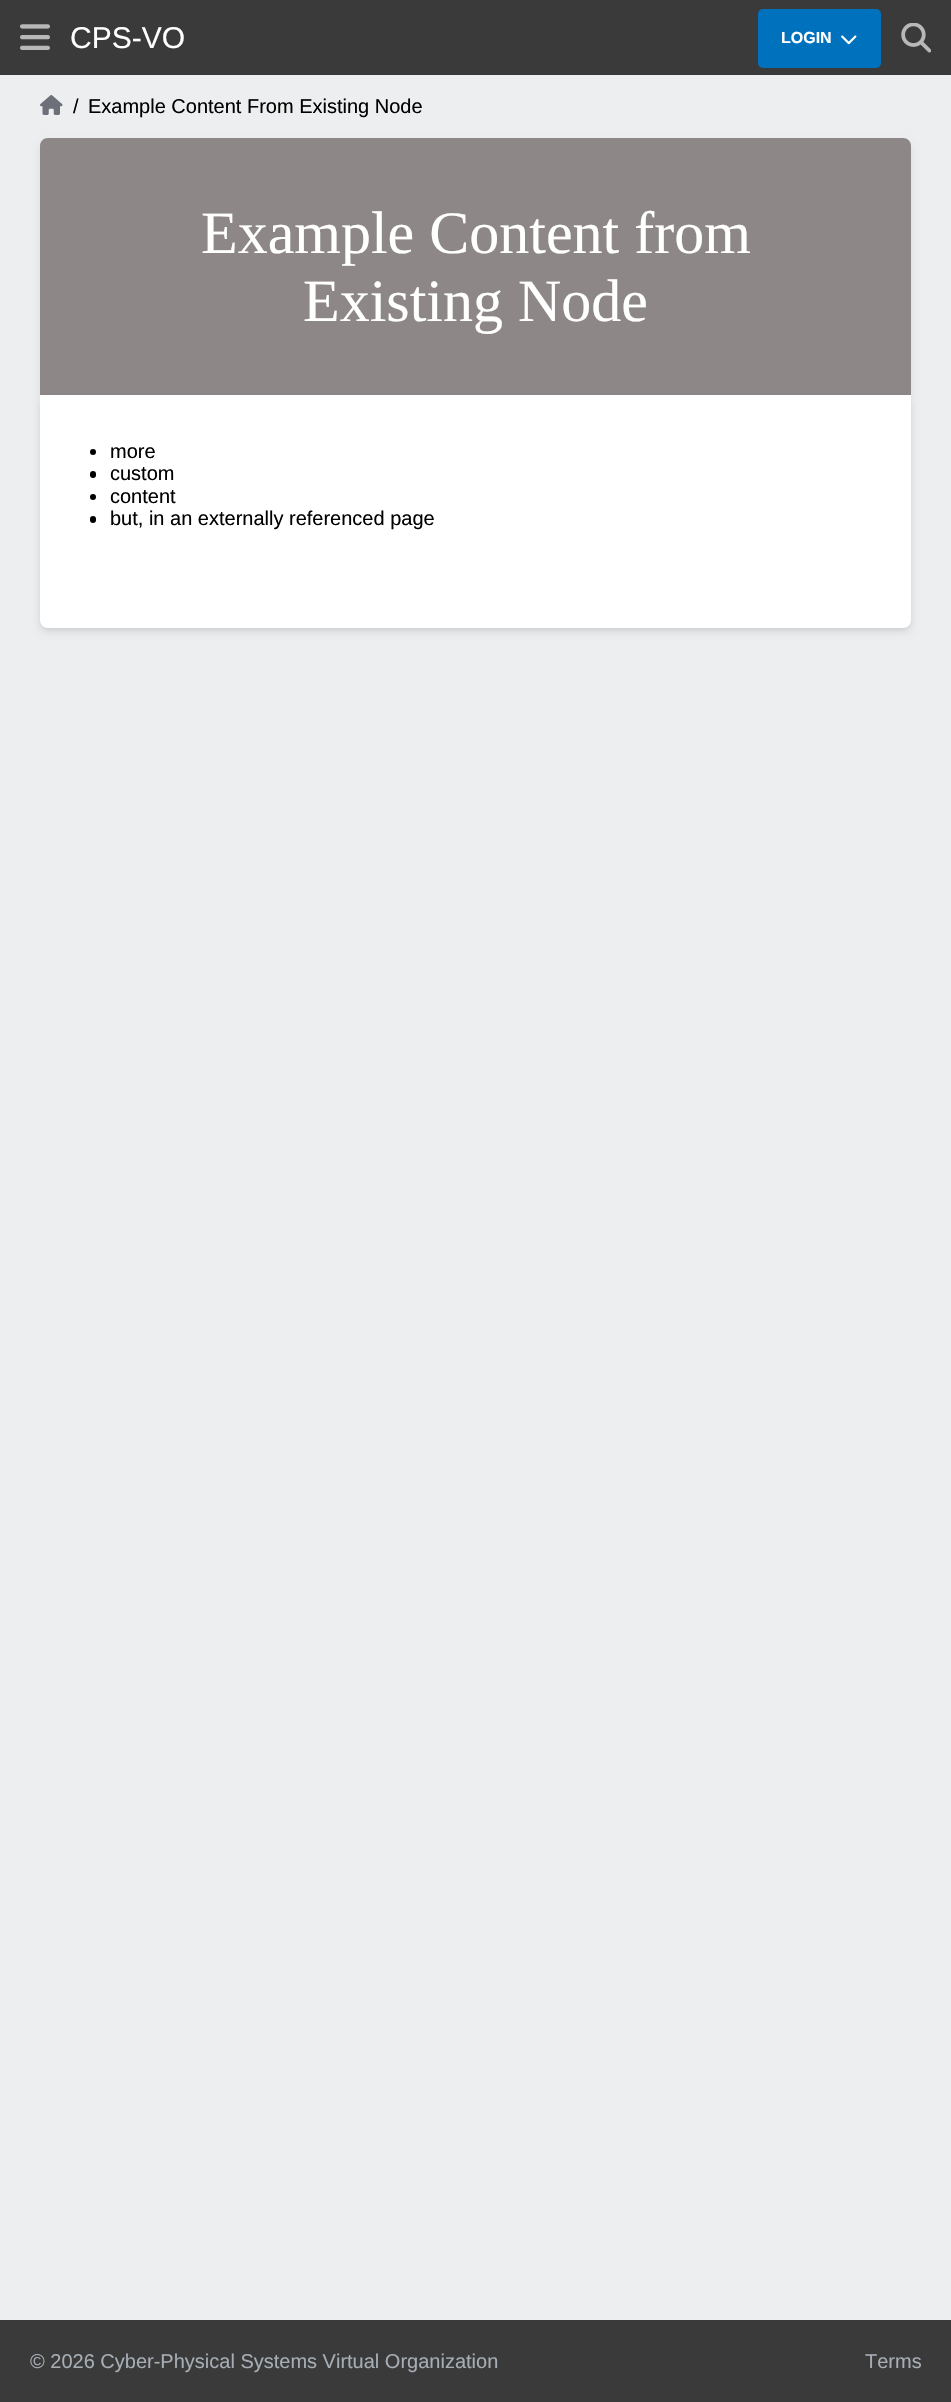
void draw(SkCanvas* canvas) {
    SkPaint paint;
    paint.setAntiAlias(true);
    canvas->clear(0xFFEDEEEF);
    paint.setColor(0xFF3B3A3A);
    canvas->drawRect(SkRect::MakeXYWH(0, 0, 951, 75), paint);
    canvas->drawImageRect(SkImages::DeferredFromEncodedData(SkData::MakeFromFileName("img1.png")), SkRect::MakeXYWH(20, 24, 30, 26), SkSamplingOptions());
    SkFont font1(fontMgr->matchFamilyStyle("Liberation Sans", SkFontStyle::Normal()), 30);
    font1.setSubpixel(true);
    paint.setColor(0xFFFFFFFF);
    canvas->drawString("CPS-VO", 70, 48, font1, paint);
    paint.setColor(0xFF0071BD);
    canvas->drawRoundRect(SkRect::MakeXYWH(758, 9, 123, 59), 5, 5, paint);
    SkFont font2(fontMgr->matchFamilyStyle("Liberation Sans", SkFontStyle::Bold()), 16);
    font2.setSubpixel(true);
    paint.setColor(0xFFFFFFFF);
    canvas->drawString("LOGIN", 781, 43, font2, paint);
    canvas->drawImageRect(SkImages::DeferredFromEncodedData(SkData::MakeFromFileName("img2.png")), SkRect::MakeXYWH(841, 35, 16, 10), SkSamplingOptions());
    canvas->drawImageRect(SkImages::DeferredFromEncodedData(SkData::MakeFromFileName("img3.png")), SkRect::MakeXYWH(901, 23, 30, 30), SkSamplingOptions());
    canvas->drawImageRect(SkImages::DeferredFromEncodedData(SkData::MakeFromFileName("img4.png")), SkRect::MakeXYWH(40, 95, 23, 20), SkSamplingOptions());
    SkFont font3(fontMgr->matchFamilyStyle("Liberation Sans", SkFontStyle::Normal()), 20);
    font3.setSubpixel(true);
    paint.setColor(0xFF000000);
    canvas->drawString("/", 73, 113, font3, paint);
    canvas->drawString("Example Content From Existing Node", 88, 113, font3, paint);
    paint.setColor(0x1A000000);
    paint.setMaskFilter(SkMaskFilter::MakeBlur(kNormal_SkBlurStyle, 4));
    canvas->drawRoundRect(SkRect::MakeXYWH(41, 144, 869, 255), 6, 6, paint);
    paint.setMaskFilter(nullptr);
    paint.setColor(0xFF8D8787);
    canvas->drawPath(SkPathBuilder().moveTo(48, 138).lineTo(903, 138).cubicTo(907.5f, 138, 911, 141.5f, 911, 146).lineTo(911, 395).lineTo(40, 395).lineTo(40, 146).cubicTo(40, 141.5f, 43.5f, 138, 48, 138).close().detach(), paint);
    SkFont font4(fontMgr->matchFamilyStyle("Liberation Serif", SkFontStyle::Normal()), 60);
    font4.setSubpixel(true);
    paint.setColor(0xFFFFFFFF);
    canvas->drawString("Example Content from", 201, 253, font4, paint);
    canvas->drawString("Existing Node", 303, 321, font4, paint);
    paint.setColor(0x0F000000);
    paint.setMaskFilter(SkMaskFilter::MakeBlur(kNormal_SkBlurStyle, 2.5f));
    canvas->drawRoundRect(SkRect::MakeXYWH(41, 399, 869, 230), 6, 6, paint);
    paint.setMaskFilter(nullptr);
    paint.setColor(0x1A000000);
    paint.setMaskFilter(SkMaskFilter::MakeBlur(kNormal_SkBlurStyle, 4));
    canvas->drawRoundRect(SkRect::MakeXYWH(41, 401, 869, 230), 6, 6, paint);
    paint.setMaskFilter(nullptr);
    paint.setColor(0xFFFFFFFF);
    canvas->drawPath(SkPathBuilder().moveTo(40, 395).lineTo(911, 395).lineTo(911, 620).cubicTo(911, 624.5f, 907.5f, 628, 903, 628).lineTo(48, 628).cubicTo(43.5f, 628, 40, 624.5f, 40, 620).close().detach(), paint);
    paint.setColor(0xFF000000);
    canvas->drawCircle(93, 452, 3, paint);
    canvas->drawString("more", 110, 458, font3, paint);
    canvas->drawRoundRect(SkRect::MakeXYWH(90, 471, 6, 7), 3, 3, paint);
    canvas->drawString("custom", 110, 480, font3, paint);
    canvas->drawCircle(93, 497, 3, paint);
    canvas->drawString("content", 110, 503, font3, paint);
    canvas->drawRoundRect(SkRect::MakeXYWH(90, 516, 6, 7), 3, 3, paint);
    canvas->drawString("but, in an externally referenced page", 110, 525, font3, paint);
    paint.setColor(0xFF3B3A3A);
    canvas->drawRect(SkRect::MakeXYWH(0, 2320, 951, 82), paint);
    paint.setColor(0xFFA6ADB4);
    canvas->drawString("© 2026 Cyber-Physical Systems Virtual Organization", 30, 2368, font3, paint);
    canvas->drawString("Terms", 865, 2368, font3, paint);
}
